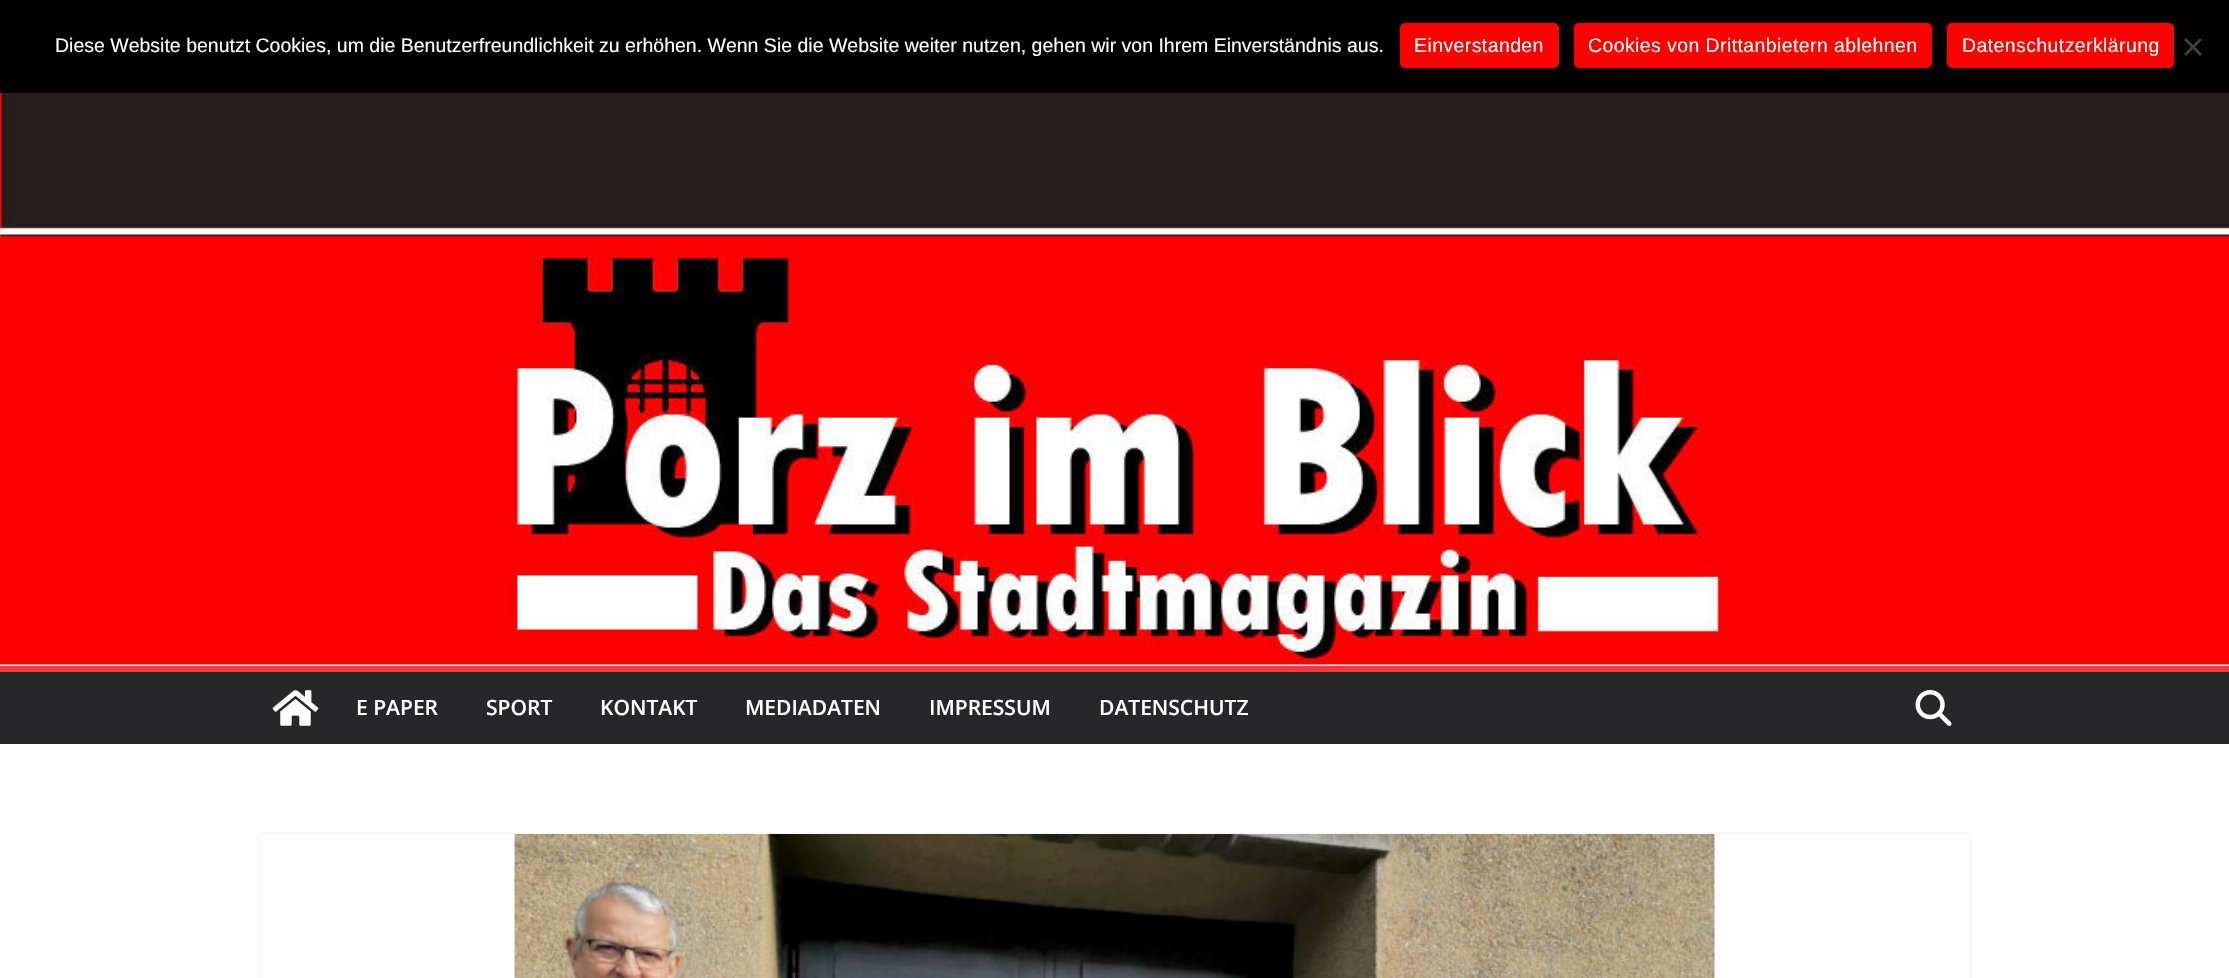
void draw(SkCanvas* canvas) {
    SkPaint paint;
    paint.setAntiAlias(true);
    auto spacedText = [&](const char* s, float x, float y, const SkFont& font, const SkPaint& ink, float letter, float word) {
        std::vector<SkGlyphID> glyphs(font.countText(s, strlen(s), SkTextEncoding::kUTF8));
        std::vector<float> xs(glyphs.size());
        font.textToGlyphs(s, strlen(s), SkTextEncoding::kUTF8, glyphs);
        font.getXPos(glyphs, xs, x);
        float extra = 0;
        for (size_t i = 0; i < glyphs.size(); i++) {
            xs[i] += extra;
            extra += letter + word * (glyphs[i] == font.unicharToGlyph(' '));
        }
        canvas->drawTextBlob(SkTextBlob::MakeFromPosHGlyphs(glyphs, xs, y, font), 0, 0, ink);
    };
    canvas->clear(0xFFFFFFFF);
    paint.setColor(0xFF020000);
    canvas->drawRect(SkRect::MakeXYWH(0, 0, 2229, 93), paint);
    SkFont font1(fontMgr->matchFamilyStyle("Liberation Sans", SkFontStyle::Normal()), 19.5f);
    font1.setSubpixel(true);
    paint.setColor(0xFFFFFFFF);
    canvas->drawString("Diese Website benutzt Cookies, um die Benutzerfreundlichkeit zu erhöhen. Wenn Sie die Website weiter nutzen, gehen wir von Ihrem Einverständnis aus.", 55, 52, font1, paint);
    paint.setColor(0xFFFF0000);
    canvas->drawRoundRect(SkRect::MakeXYWH(1400, 23, 159, 45), 5, 5, paint);
    paint.setColor(0xFFFFFFFF);
    spacedText("Einverstanden", 1414, 52, font1, paint, 0.4f, 0);
    paint.setColor(0xFFFF0000);
    canvas->drawRoundRect(SkRect::MakeXYWH(1574, 23, 358, 45), 5, 5, paint);
    paint.setColor(0xFFFFFFFF);
    spacedText("Cookies von Drittanbietern ablehnen", 1588, 52, font1, paint, 0.4f, 0);
    paint.setColor(0xFFFF0000);
    canvas->drawRoundRect(SkRect::MakeXYWH(1947, 23, 227, 45), 5, 5, paint);
    paint.setColor(0xFFFFFFFF);
    spacedText("Datenschutzerklärung", 1962, 52, font1, paint, 0.4f, 0);
    paint.setColor(0xFF414040);
    canvas->drawPath(SkPathBuilder().moveTo(2200, 38).lineTo(2202, 40).lineTo(2186, 56).lineTo(2184, 54).close().detach(), paint);
    canvas->drawPath(SkPathBuilder().moveTo(2184, 40).lineTo(2186, 38).lineTo(2202, 54).lineTo(2200, 56).close().detach(), paint);
    canvas->drawImageRect(SkImages::DeferredFromEncodedData(SkData::MakeFromFileName("img1.png")), SkRect::MakeXYWH(0, 93, 2229, 572), SkSamplingOptions());
    paint.setColor(0xFF27272A);
    canvas->drawRect(SkRect::MakeXYWH(0, 672, 2229, 72), paint);
    paint.setColor(0xFFF2373D);
    canvas->drawRect(SkRect::MakeXYWH(0, 666, 2229, 6), paint);
    canvas->drawImageRect(SkImages::DeferredFromEncodedData(SkData::MakeFromFileName("img2.png")), SkRect::MakeXYWH(272, 690, 47, 36), SkSamplingOptions());
    SkFont font2(fontMgr->matchFamilyStyle("Open Sans", SkFontStyle(600, SkFontStyle::kNormal_Width, SkFontStyle::kUpright_Slant)), 21);
    font2.setSubpixel(true);
    paint.setColor(0xFFFFFFFF);
    canvas->drawString("E PAPER", 356, 715, font2, paint);
    canvas->drawString("SPORT", 486, 715, font2, paint);
    canvas->drawString("KONTAKT", 600, 715, font2, paint);
    canvas->drawString("MEDIADATEN", 745, 715, font2, paint);
    canvas->drawString("IMPRESSUM", 929, 715, font2, paint);
    canvas->drawString("DATENSCHUTZ", 1099, 715, font2, paint);
    canvas->drawImageRect(SkImages::DeferredFromEncodedData(SkData::MakeFromFileName("img3.png")), SkRect::MakeXYWH(1915, 690, 37, 36), SkSamplingOptions());
    canvas->save();
    canvas->clipPath(SkPathBuilder(SkPathFillType::kEvenOdd).moveTo(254, 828).lineTo(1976, 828).lineTo(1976, 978).lineTo(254, 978).close().moveTo(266, 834).lineTo(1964, 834).cubicTo(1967.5f, 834, 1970, 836.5f, 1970, 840).lineTo(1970, 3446).cubicTo(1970, 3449.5f, 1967.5f, 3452, 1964, 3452).lineTo(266, 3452).cubicTo(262.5f, 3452, 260, 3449.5f, 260, 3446).lineTo(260, 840).cubicTo(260, 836.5f, 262.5f, 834, 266, 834).close().detach(), true);
    paint.setColor(0xFFE4E4E7);
    paint.setMaskFilter(SkMaskFilter::MakeBlur(kNormal_SkBlurStyle, 1.5f));
    canvas->drawRoundRect(SkRect::MakeXYWH(260, 834, 1710, 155), 6, 6, paint);
    paint.setMaskFilter(nullptr);
    canvas->restore();
    canvas->drawImageRect(SkImages::DeferredFromEncodedData(SkData::MakeFromFileName("img4.png")), SkRect::MakeXYWH(514, 834, 1201, 144), SkSamplingOptions());
}
